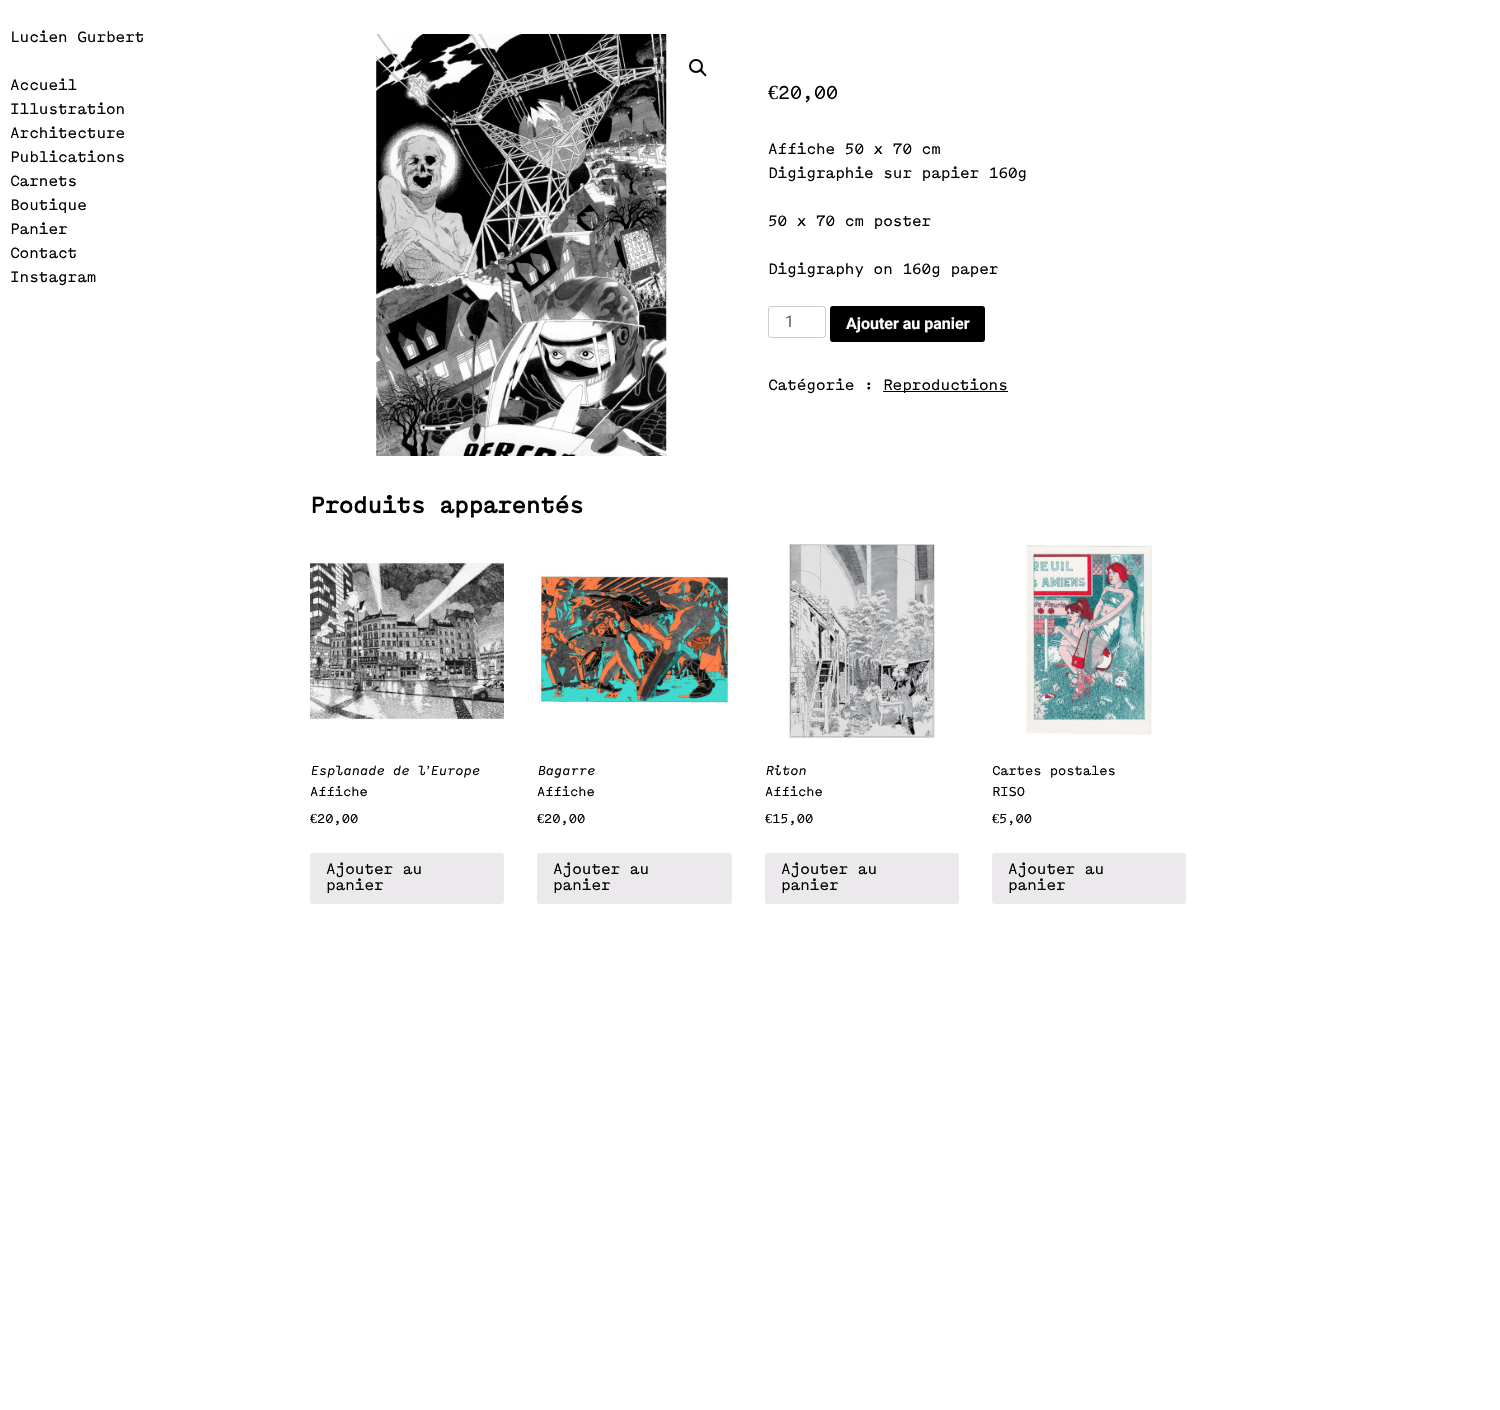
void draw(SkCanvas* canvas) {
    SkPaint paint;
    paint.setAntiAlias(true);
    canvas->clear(0xFFFFFFFF);
    SkFont font1(fontMgr->matchFamilyStyle("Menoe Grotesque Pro", SkFontStyle::Normal()), 16);
    font1.setSubpixel(true);
    paint.setColor(0xFF000000);
    canvas->drawString("Lucien Gurbert", 10, 42, font1, paint);
    canvas->drawString("Accueil", 10, 90, font1, paint);
    canvas->drawString("Illustration", 10, 114, font1, paint);
    canvas->drawString("Architecture", 10, 138, font1, paint);
    canvas->drawString("Publications", 10, 162, font1, paint);
    canvas->drawString("Carnets", 10, 186, font1, paint);
    canvas->drawString("Boutique", 10, 210, font1, paint);
    canvas->drawString("Panier", 10, 234, font1, paint);
    canvas->drawString("Contact", 10, 258, font1, paint);
    canvas->drawString("Instagram", 10, 282, font1, paint);
    canvas->drawImageRect(SkImages::DeferredFromEncodedData(SkData::MakeFromFileName("img1.png")), SkRect::MakeXYWH(376, 34, 291, 422), SkSamplingOptions());
    paint.setStyle(SkPaint::kStroke_Style);
    paint.setStrokeWidth(2);
    canvas->drawCircle(696, 66, 6, paint);
    paint.setStyle(SkPaint::kFill_Style);
    canvas->drawPath(SkPathBuilder().moveTo(700.5f, 70).cubicTo(702, 69, 703.5f, 71.5f, 704, 72.5f).cubicTo(704.5f, 73, 707.5f, 74.5f, 706, 76).cubicTo(705, 77, 703.5f, 74.5f, 702.5f, 73.5f).cubicTo(702, 73, 699.5f, 71.5f, 700.5f, 70).close().detach(), paint);
    SkFont font2(fontMgr->matchFamilyStyle("Liberation Serif", SkFontStyle::Normal()), 20);
    font2.setSubpixel(true);
    canvas->drawString("€", 768, 99, font2, paint);
    SkFont font3(fontMgr->matchFamilyStyle("Menoe Grotesque Pro", SkFontStyle::Normal()), 20);
    font3.setSubpixel(true);
    canvas->drawString("20,00", 778, 99, font3, paint);
    canvas->drawString("Affiche 50 x 70 cm", 768, 154, font1, paint);
    canvas->drawString("Digigraphie sur papier 160g", 768, 178, font1, paint);
    canvas->drawString("50 x 70 cm poster", 768, 226, font1, paint);
    canvas->drawString("Digigraphy on 160g paper", 768, 274, font1, paint);
    paint.setStyle(SkPaint::kStroke_Style);
    paint.setStrokeWidth(1);
    paint.setColor(0xFFCCCCCC);
    canvas->drawRoundRect(SkRect::MakeXYWH(768.5f, 306.5f, 57, 31), 2.5f, 2.5f, paint);
    SkFont font4(fontMgr->matchFamilyStyle("Roboto", SkFontStyle::Normal()), 16);
    font4.setSubpixel(true);
    paint.setStyle(SkPaint::kFill_Style);
    paint.setColor(0xFF666666);
    canvas->drawString("1", 785, 327, font4, paint);
    paint.setColor(0xFF000000);
    canvas->drawRoundRect(SkRect::MakeXYWH(830, 306, 155, 36), 3, 3, paint);
    SkFont font5(fontMgr->matchFamilyStyle("Roboto", SkFontStyle::Bold()), 16);
    font5.setSubpixel(true);
    paint.setColor(0xFFFFFFFF);
    canvas->drawString("Ajouter au panier", 846, 329, font5, paint);
    paint.setColor(0xFF000000);
    canvas->drawString("Catégorie :", 768, 390, font1, paint);
    canvas->drawRect(SkRect::MakeXYWH(883, 391, 125, 1), paint);
    canvas->drawString("Reproductions", 883, 390, font1, paint);
    SkFont font6(fontMgr->matchFamilyStyle("Menoe Grotesque Pro", SkFontStyle::Bold()), 24);
    font6.setSubpixel(true);
    canvas->drawString("Produits apparentés", 310, 513, font6, paint);
    canvas->drawImageRect(SkImages::DeferredFromEncodedData(SkData::MakeFromFileName("img2.png")), SkRect::MakeXYWH(310, 560, 194, 160), SkSamplingOptions());
    SkFont font7(fontMgr->matchFamilyStyle("Menoe Grotesque Pro", SkFontStyle::Italic()), 13.75f);
    font7.setSubpixel(true);
    canvas->drawString("Esplanade de l", 310, 775, font7, paint);
    SkFont font8(fontMgr->matchFamilyStyle("Liberation Serif", SkFontStyle::Italic()), 13.75f);
    font8.setSubpixel(true);
    canvas->drawString("’", 425, 775, font8, paint);
    canvas->drawString("Europe", 430, 775, font7, paint);
    SkFont font9(fontMgr->matchFamilyStyle("Menoe Grotesque Pro", SkFontStyle::Normal()), 13.75f);
    font9.setSubpixel(true);
    canvas->drawString("Affiche", 310, 796, font9, paint);
    SkFont font10(fontMgr->matchFamilyStyle("Liberation Serif", SkFontStyle::Normal()), 13.75f);
    font10.setSubpixel(true);
    canvas->drawString("€", 310, 823, font10, paint);
    canvas->drawString("20,00", 317, 823, font9, paint);
    paint.setColor(0xFFEBE9EB);
    canvas->drawRoundRect(SkRect::MakeXYWH(310, 853, 194, 51), 3, 3, paint);
    paint.setColor(0xFF000000);
    canvas->drawString("Ajouter au", 326, 874, font1, paint);
    canvas->drawString("panier", 326, 890, font1, paint);
    canvas->drawImageRect(SkImages::DeferredFromEncodedData(SkData::MakeFromFileName("img3.png")), SkRect::MakeXYWH(537, 575, 193, 130), SkSamplingOptions());
    canvas->drawString("Bagarre", 537, 775, font7, paint);
    canvas->drawString("Affiche", 537, 796, font9, paint);
    canvas->drawString("€", 537, 823, font10, paint);
    canvas->drawString("20,00", 544, 823, font9, paint);
    paint.setColor(0xFFEBE9EB);
    canvas->drawRoundRect(SkRect::MakeXYWH(537, 853, 195, 51), 3, 3, paint);
    paint.setColor(0xFF000000);
    canvas->drawString("Ajouter au", 553, 874, font1, paint);
    canvas->drawString("panier", 553, 890, font1, paint);
    canvas->drawImageRect(SkImages::DeferredFromEncodedData(SkData::MakeFromFileName("img4.png")), SkRect::MakeXYWH(786, 544, 150, 194), SkSamplingOptions());
    canvas->drawString("Riton", 765, 775, font7, paint);
    canvas->drawString("Affiche", 765, 796, font9, paint);
    canvas->drawString("€", 765, 823, font10, paint);
    canvas->drawString("15,00", 772, 823, font9, paint);
    paint.setColor(0xFFEBE9EB);
    canvas->drawRoundRect(SkRect::MakeXYWH(765, 853, 194, 51), 3, 3, paint);
    paint.setColor(0xFF000000);
    canvas->drawString("Ajouter au", 781, 874, font1, paint);
    canvas->drawString("panier", 781, 890, font1, paint);
    canvas->drawImageRect(SkImages::DeferredFromEncodedData(SkData::MakeFromFileName("img5.png")), SkRect::MakeXYWH(1025, 545, 127, 190), SkSamplingOptions());
    canvas->drawString("Cartes postales", 992, 775, font9, paint);
    canvas->drawString("RISO", 992, 796, font9, paint);
    canvas->drawString("€", 992, 823, font10, paint);
    canvas->drawString("5,00", 999, 823, font9, paint);
    paint.setColor(0xFFEBE9EB);
    canvas->drawRoundRect(SkRect::MakeXYWH(992, 853, 194, 51), 3, 3, paint);
    paint.setColor(0xFF000000);
    canvas->drawString("Ajouter au", 1008, 874, font1, paint);
    canvas->drawString("panier", 1008, 890, font1, paint);
}
